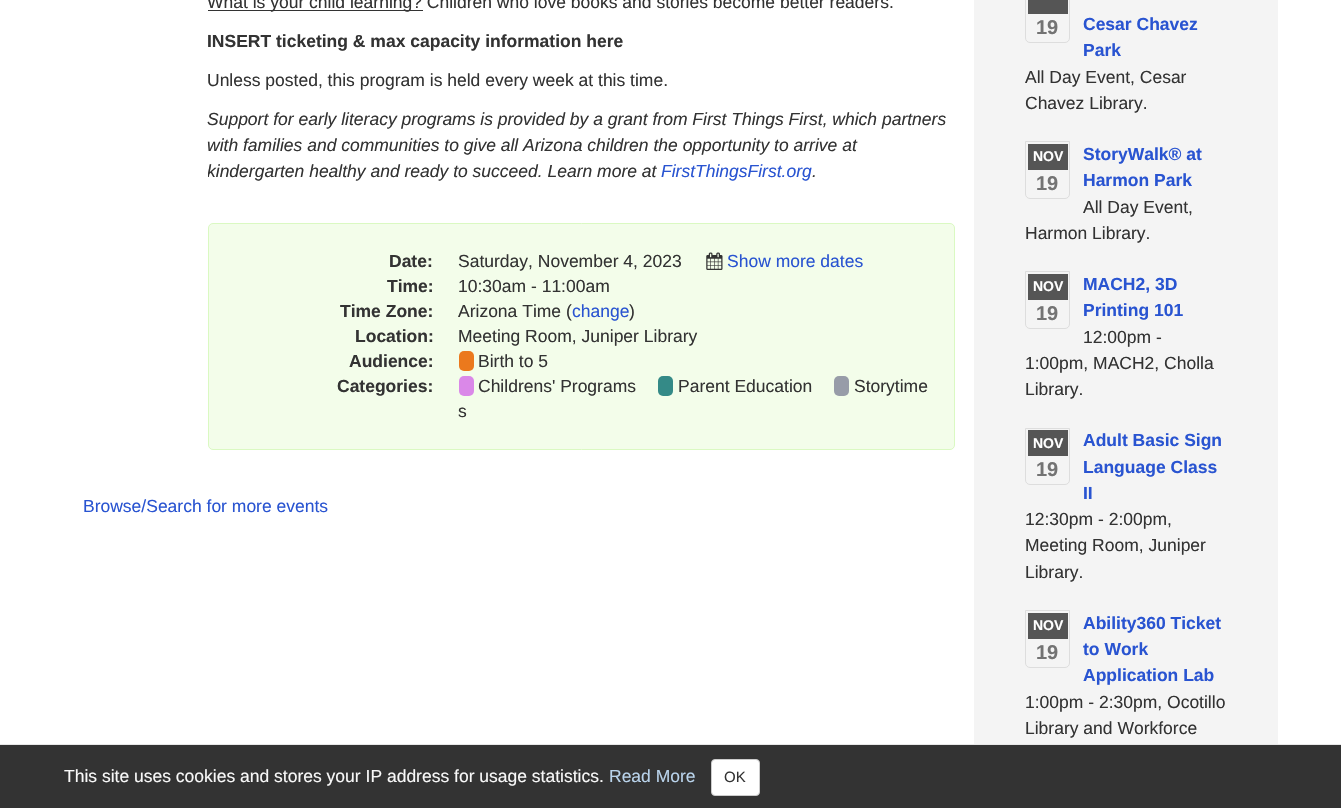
void draw(SkCanvas* canvas) {
    SkPaint paint;
    paint.setAntiAlias(true);
    canvas->clear(0xFFFFFFFF);
    paint.setColor(0xFF333333);
    canvas->drawRect(SkRect::MakeXYWH(208, 10, 215, 1), paint);
    SkFont font1(fontMgr->matchFamilyStyle("Liberation Sans", SkFontStyle::Normal()), 17.5f);
    font1.setSubpixel(true);
    canvas->drawString("What is your child learning? Children who love books and stories become better readers.", 207, 8, font1, paint);
    SkFont font2(fontMgr->matchFamilyStyle("Liberation Sans", SkFontStyle::Bold()), 17.5f);
    font2.setSubpixel(true);
    canvas->drawString("INSERT ticketing & max capacity information here", 207, 47, font2, paint);
    canvas->drawString("Unless posted, this program is held every week at this time.", 207, 86, font1, paint);
    SkFont font3(fontMgr->matchFamilyStyle("Liberation Sans", SkFontStyle::Italic()), 17.5f);
    font3.setSubpixel(true);
    canvas->drawString("Support for early literacy programs is provided by a grant from First Things First, which partners", 207, 125, font3, paint);
    canvas->drawString("with families and communities to give all Arizona children the opportunity to arrive at", 207, 151, font3, paint);
    canvas->save();
    canvas->clipRect(SkRect::MakeXYWH(208, 0, 747, 463));
    canvas->drawString("kindergarten healthy and ready to succeed. Learn more at", 207, 177, font3, paint);
    canvas->restore();
    paint.setColor(0xFF2954D1);
    canvas->drawString("FirstThingsFirst.org", 661, 177, font3, paint);
    paint.setColor(0xFF333333);
    canvas->drawString(".", 812, 177, font3, paint);
    paint.setColor(0xFFF3FDEA);
    canvas->drawRoundRect(SkRect::MakeXYWH(208.5f, 223.5f, 746, 226), 4.5f, 4.5f, paint);
    paint.setStyle(SkPaint::kStroke_Style);
    paint.setStrokeWidth(1);
    paint.setColor(0xFFDAF9C2);
    canvas->drawRoundRect(SkRect::MakeXYWH(208.5f, 223.5f, 746, 226), 4.5f, 4.5f, paint);
    paint.setStyle(SkPaint::kFill_Style);
    paint.setColor(0xFF333333);
    canvas->drawString("Date:", 389, 267, font2, paint);
    canvas->drawString("Saturday, November 4, 2023", 458, 267, font1, paint);
    canvas->drawImageRect(SkImages::DeferredFromEncodedData(SkData::MakeFromFileName("img1.png")), SkRect::MakeXYWH(706, 252, 17, 18), SkSamplingOptions());
    paint.setColor(0xFF2954D1);
    canvas->drawString("Show more dates", 727, 267, font1, paint);
    paint.setColor(0xFF333333);
    canvas->drawString("Time:", 387, 292, font2, paint);
    canvas->drawString("10:30am - 11:00am", 458, 292, font1, paint);
    canvas->drawString("Time Zone:", 340, 317, font2, paint);
    canvas->drawString("Arizona Time (", 458, 317, font1, paint);
    paint.setColor(0xFF2954D1);
    canvas->drawString("change", 572, 317, font1, paint);
    paint.setColor(0xFF333333);
    canvas->drawString(")", 629, 317, font1, paint);
    canvas->drawString("Location:", 355, 342, font2, paint);
    canvas->drawString("Meeting Room, Juniper Library", 458, 342, font1, paint);
    canvas->drawString("Audience:", 349, 367, font2, paint);
    paint.setColor(0xFFEB791D);
    canvas->drawRoundRect(SkRect::MakeXYWH(459, 351, 15, 20), 5, 5, paint);
    paint.setColor(0xFF333333);
    canvas->drawString("Birth to 5", 478, 367, font1, paint);
    canvas->drawString("Categories:", 337, 392, font2, paint);
    paint.setColor(0xFFDA88E8);
    canvas->drawRoundRect(SkRect::MakeXYWH(459, 376, 15, 20), 5, 5, paint);
    paint.setColor(0xFF333333);
    canvas->drawString("Childrens' Programs", 478, 392, font1, paint);
    paint.setColor(0xFF348A87);
    canvas->drawRoundRect(SkRect::MakeXYWH(658, 376, 15, 20), 5, 5, paint);
    paint.setColor(0xFF333333);
    canvas->drawString("Parent Education", 678, 392, font1, paint);
    paint.setColor(0xFF979CA8);
    canvas->drawRoundRect(SkRect::MakeXYWH(834, 376, 15, 20), 5, 5, paint);
    paint.setColor(0xFF333333);
    canvas->drawString("Storytime", 854, 392, font1, paint);
    canvas->drawString("s", 458, 417, font1, paint);
    paint.setColor(0xFF2954D1);
    canvas->drawString("Browse/Search for more events", 83, 512, font1, paint);
    paint.setColor(0xFFF4F4F4);
    canvas->drawRect(SkRect::MakeXYWH(974, 0, 304, 744), paint);
    paint.setStyle(SkPaint::kStroke_Style);
    paint.setColor(0xFFDDDDDD);
    canvas->drawPath(SkPathBuilder().moveTo(1025.5f, -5.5f).lineTo(1069.5f, -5.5f).lineTo(1069.5f, 38).cubicTo(1069.5f, 40.5f, 1067.5f, 42.5f, 1065, 42.5f).lineTo(1030, 42.5f).cubicTo(1027.5f, 42.5f, 1025.5f, 40.5f, 1025.5f, 38).close().detach(), paint);
    paint.setStyle(SkPaint::kFill_Style);
    paint.setColor(0xFF555555);
    canvas->drawRect(SkRect::MakeXYWH(1028, 0, 40, 14), paint);
    SkFont font4(fontMgr->matchFamilyStyle("Liberation Sans", SkFontStyle::Bold()), 20);
    font4.setSubpixel(true);
    paint.setColor(0xFF737373);
    canvas->drawString("19", 1036, 34, font4, paint);
    paint.setColor(0xFF2954D1);
    canvas->drawString("Cesar Chavez", 1083, 30, font2, paint);
    canvas->drawString("Park", 1083, 56, font2, paint);
    paint.setColor(0xFF333333);
    canvas->drawString("All Day Event, Cesar", 1025, 83, font1, paint);
    canvas->drawString("Chavez Library.", 1025, 109, font1, paint);
    paint.setStyle(SkPaint::kStroke_Style);
    paint.setColor(0xFFDDDDDD);
    canvas->drawPath(SkPathBuilder().moveTo(1025.5f, 141.5f).lineTo(1069.5f, 141.5f).lineTo(1069.5f, 194).cubicTo(1069.5f, 196.5f, 1067.5f, 198.5f, 1065, 198.5f).lineTo(1030, 198.5f).cubicTo(1027.5f, 198.5f, 1025.5f, 196.5f, 1025.5f, 194).close().detach(), paint);
    paint.setStyle(SkPaint::kFill_Style);
    paint.setColor(0xFF555555);
    canvas->drawRect(SkRect::MakeXYWH(1028, 144, 40, 26), paint);
    SkFont font5(fontMgr->matchFamilyStyle("Liberation Sans", SkFontStyle::Bold()), 14);
    font5.setSubpixel(true);
    paint.setColor(0xFFFFFFFF);
    canvas->drawString("NOV", 1033, 161, font5, paint);
    paint.setColor(0xFF737373);
    canvas->drawString("19", 1036, 190, font4, paint);
    paint.setColor(0xFF2954D1);
    canvas->drawString("StoryWalk® at", 1083, 160, font2, paint);
    canvas->drawString("Harmon Park", 1083, 186, font2, paint);
    paint.setColor(0xFF333333);
    canvas->drawString("All Day Event,", 1083, 213, font1, paint);
    canvas->drawString("Harmon Library.", 1025, 239, font1, paint);
    paint.setStyle(SkPaint::kStroke_Style);
    paint.setColor(0xFFDDDDDD);
    canvas->drawPath(SkPathBuilder().moveTo(1025.5f, 271.5f).lineTo(1069.5f, 271.5f).lineTo(1069.5f, 324).cubicTo(1069.5f, 326.5f, 1067.5f, 328.5f, 1065, 328.5f).lineTo(1030, 328.5f).cubicTo(1027.5f, 328.5f, 1025.5f, 326.5f, 1025.5f, 324).close().detach(), paint);
    paint.setStyle(SkPaint::kFill_Style);
    paint.setColor(0xFF555555);
    canvas->drawRect(SkRect::MakeXYWH(1028, 274, 40, 26), paint);
    paint.setColor(0xFFFFFFFF);
    canvas->drawString("NOV", 1033, 291, font5, paint);
    paint.setColor(0xFF737373);
    canvas->drawString("19", 1036, 320, font4, paint);
    paint.setColor(0xFF2954D1);
    canvas->drawString("MACH2, 3D", 1083, 290, font2, paint);
    canvas->drawString("Printing 101", 1083, 316, font2, paint);
    paint.setColor(0xFF333333);
    canvas->drawString("12:00pm -", 1083, 343, font1, paint);
    canvas->drawString("1:00pm, MACH2, Cholla", 1025, 369, font1, paint);
    canvas->drawString("Library.", 1025, 395, font1, paint);
    paint.setStyle(SkPaint::kStroke_Style);
    paint.setColor(0xFFDDDDDD);
    canvas->drawPath(SkPathBuilder().moveTo(1025.5f, 428.5f).lineTo(1069.5f, 428.5f).lineTo(1069.5f, 480).cubicTo(1069.5f, 482.5f, 1067.5f, 484.5f, 1065, 484.5f).lineTo(1030, 484.5f).cubicTo(1027.5f, 484.5f, 1025.5f, 482.5f, 1025.5f, 480).close().detach(), paint);
    paint.setStyle(SkPaint::kFill_Style);
    paint.setColor(0xFF555555);
    canvas->drawRect(SkRect::MakeXYWH(1028, 430, 40, 26), paint);
    paint.setColor(0xFFFFFFFF);
    canvas->drawString("NOV", 1033, 448, font5, paint);
    paint.setColor(0xFF737373);
    canvas->drawString("19", 1036, 476, font4, paint);
    paint.setColor(0xFF2954D1);
    canvas->drawString("Adult Basic Sign", 1083, 446, font2, paint);
    canvas->drawString("Language Class", 1083, 473, font2, paint);
    canvas->drawString("II", 1083, 499, font2, paint);
    paint.setColor(0xFF333333);
    canvas->drawString("12:30pm - 2:00pm,", 1025, 525, font1, paint);
    canvas->drawString("Meeting Room, Juniper", 1025, 551, font1, paint);
    canvas->drawString("Library.", 1025, 578, font1, paint);
    paint.setStyle(SkPaint::kStroke_Style);
    paint.setColor(0xFFDDDDDD);
    canvas->drawPath(SkPathBuilder().moveTo(1025.5f, 610.5f).lineTo(1069.5f, 610.5f).lineTo(1069.5f, 663).cubicTo(1069.5f, 665.5f, 1067.5f, 667.5f, 1065, 667.5f).lineTo(1030, 667.5f).cubicTo(1027.5f, 667.5f, 1025.5f, 665.5f, 1025.5f, 663).close().detach(), paint);
    paint.setStyle(SkPaint::kFill_Style);
    paint.setColor(0xFF555555);
    canvas->drawRect(SkRect::MakeXYWH(1028, 613, 40, 26), paint);
    paint.setColor(0xFFFFFFFF);
    canvas->drawString("NOV", 1033, 630, font5, paint);
    paint.setColor(0xFF737373);
    canvas->drawString("19", 1036, 659, font4, paint);
    paint.setColor(0xFF2954D1);
    canvas->drawString("Ability360 Ticket", 1083, 629, font2, paint);
    canvas->drawString("to Work", 1083, 655, font2, paint);
    canvas->drawString("Application Lab", 1083, 681, font2, paint);
    paint.setColor(0xFF333333);
    canvas->drawString("1:00pm - 2:30pm, Ocotillo", 1025, 708, font1, paint);
    canvas->drawString("Library and Workforce", 1025, 734, font1, paint);
    canvas->drawRect(SkRect::MakeXYWH(0, 745, 1341, 63), paint);
    paint.setColor(0xFFE7E7E7);
    canvas->drawRect(SkRect::MakeXYWH(0, 744, 1341, 1), paint);
    paint.setColor(0xFFF8F8F8);
    canvas->drawString("This site uses cookies and stores your IP address for usage statistics.", 64, 782, font1, paint);
    paint.setColor(0xFFB9D3EB);
    canvas->drawString("Read More", 609, 782, font1, paint);
    paint.setColor(0xFFFFFFFF);
    canvas->drawRoundRect(SkRect::MakeXYWH(711.5f, 759.5f, 48, 36), 3.5f, 3.5f, paint);
    paint.setStyle(SkPaint::kStroke_Style);
    paint.setColor(0xFFCCCCCC);
    canvas->drawRoundRect(SkRect::MakeXYWH(711.5f, 759.5f, 48, 36), 3.5f, 3.5f, paint);
    SkFont font6(fontMgr->matchFamilyStyle("Liberation Sans", SkFontStyle::Normal()), 15);
    font6.setSubpixel(true);
    paint.setStyle(SkPaint::kFill_Style);
    paint.setColor(0xFF333333);
    canvas->drawString("OK", 724, 782, font6, paint);
}
